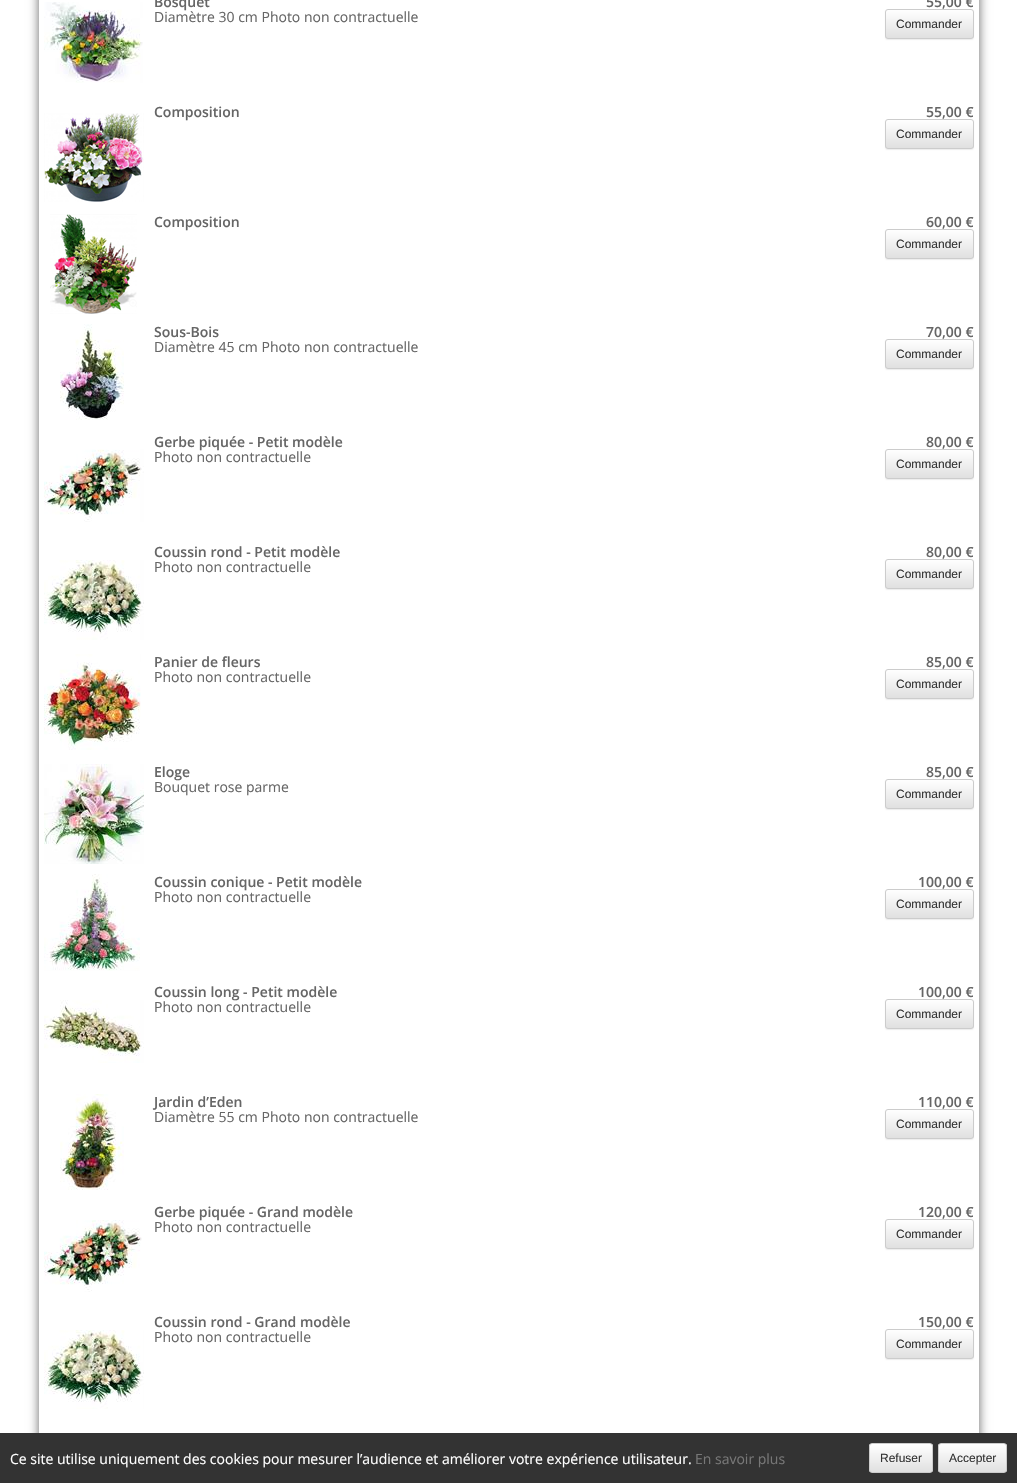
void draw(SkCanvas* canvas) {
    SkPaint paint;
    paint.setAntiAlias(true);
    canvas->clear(0xFFFFFFFF);
    canvas->save();
    canvas->clipPath(SkPathBuilder(SkPathFillType::kEvenOdd).moveTo(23, 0).lineTo(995, 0).lineTo(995, 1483).lineTo(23, 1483).close().moveTo(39, -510).lineTo(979, -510).lineTo(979, 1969).lineTo(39, 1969).close().detach(), true);
    paint.setColor(0xFF666666);
    paint.setMaskFilter(SkMaskFilter::MakeBlur(kNormal_SkBlurStyle, 5));
    canvas->drawRect(SkRect::MakeXYWH(39, -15, 940, 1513), paint);
    paint.setMaskFilter(nullptr);
    canvas->restore();
    canvas->drawImageRect(SkImages::DeferredFromEncodedData(SkData::MakeFromFileName("img1.png")), SkRect::MakeXYWH(44, 2, 99, 81), SkSamplingOptions());
    SkFont font1(fontMgr->matchFamilyStyle("Open Sans", SkFontStyle(600, SkFontStyle::kNormal_Width, SkFontStyle::kUpright_Slant)), 14);
    font1.setSubpixel(true);
    canvas->drawString("Bosquet", 154, 7, font1, paint);
    SkFont font2(fontMgr->matchFamilyStyle("Open Sans", SkFontStyle::Normal()), 14);
    font2.setSubpixel(true);
    canvas->drawString("Diamètre 30 cm Photo non contractuelle", 154, 22, font2, paint);
    canvas->drawString("55,00 €", 926, 7, font1, paint);
    paint.setColor(0x12000000);
    paint.setMaskFilter(SkMaskFilter::MakeBlur(kNormal_SkBlurStyle, 0.5f));
    canvas->drawRoundRect(SkRect::MakeXYWH(885, 10, 89, 30), 3, 3, paint);
    paint.setMaskFilter(nullptr);
    canvas->save();
    canvas->clipPath(SkPathBuilder().moveTo(888, 9).lineTo(971, 9).cubicTo(972.5f, 9, 974, 10.5f, 974, 12).lineTo(974, 36).cubicTo(974, 37.5f, 972.5f, 39, 971, 39).lineTo(888, 39).cubicTo(886.5f, 39, 885, 37.5f, 885, 36).lineTo(885, 12).cubicTo(885, 10.5f, 886.5f, 9, 888, 9).close().detach(), true);
    {
        const SkColor colors[] = {0xFFFFFFFF, 0xFFE0E0E0};
        const float stops[] = {0, 1};
        const SkPoint ends[] = {{930, 10}, {930, 38}};
        paint.setShader(SkGradientShader::MakeLinear(ends, colors, stops, 2, SkTileMode::kClamp));
        paint.setAlpha(255);
    }
    canvas->drawRect(SkRect::MakeXYWH(885, 10, 89, 28), paint);
    canvas->restore();
    paint.setStyle(SkPaint::kStroke_Style);
    paint.setStrokeWidth(1);
    paint.setShader(nullptr);
    paint.setColor(0xFFCCCCCC);
    canvas->drawRoundRect(SkRect::MakeXYWH(885.5f, 9.5f, 88, 29), 2.5f, 2.5f, paint);
    SkFont font3(fontMgr->matchFamilyStyle("Liberation Sans", SkFontStyle::Normal()), 12);
    font3.setSubpixel(true);
    paint.setStyle(SkPaint::kFill_Style);
    paint.setColor(0xFF333333);
    canvas->drawString("Commander", 896, 28, font3, paint);
    canvas->drawImageRect(SkImages::DeferredFromEncodedData(SkData::MakeFromFileName("img2.png")), SkRect::MakeXYWH(44, 113, 100, 89), SkSamplingOptions());
    paint.setColor(0xFF666666);
    canvas->drawString("Composition", 154, 117, font1, paint);
    canvas->drawString("55,00 €", 926, 117, font1, paint);
    paint.setColor(0x12000000);
    paint.setMaskFilter(SkMaskFilter::MakeBlur(kNormal_SkBlurStyle, 0.5f));
    canvas->drawRoundRect(SkRect::MakeXYWH(885, 120, 89, 30), 3, 3, paint);
    paint.setMaskFilter(nullptr);
    canvas->save();
    canvas->clipPath(SkPathBuilder().moveTo(888, 119).lineTo(971, 119).cubicTo(972.5f, 119, 974, 120.5f, 974, 122).lineTo(974, 146).cubicTo(974, 147.5f, 972.5f, 149, 971, 149).lineTo(888, 149).cubicTo(886.5f, 149, 885, 147.5f, 885, 146).lineTo(885, 122).cubicTo(885, 120.5f, 886.5f, 119, 888, 119).close().detach(), true);
    {
        const SkColor colors[] = {0xFFFFFFFF, 0xFFE0E0E0};
        const float stops[] = {0, 1};
        const SkPoint ends[] = {{930, 120}, {930, 148}};
        paint.setShader(SkGradientShader::MakeLinear(ends, colors, stops, 2, SkTileMode::kClamp));
        paint.setAlpha(255);
    }
    canvas->drawRect(SkRect::MakeXYWH(885, 120, 89, 28), paint);
    canvas->restore();
    paint.setStyle(SkPaint::kStroke_Style);
    paint.setShader(nullptr);
    paint.setColor(0xFFCCCCCC);
    canvas->drawRoundRect(SkRect::MakeXYWH(885.5f, 119.5f, 88, 29), 2.5f, 2.5f, paint);
    paint.setStyle(SkPaint::kFill_Style);
    paint.setColor(0xFF333333);
    canvas->drawString("Commander", 896, 138, font3, paint);
    canvas->drawImageRect(SkImages::DeferredFromEncodedData(SkData::MakeFromFileName("img3.png")), SkRect::MakeXYWH(50, 214, 87, 100), SkSamplingOptions());
    paint.setColor(0xFF666666);
    canvas->drawString("Composition", 154, 227, font1, paint);
    canvas->drawString("60,00 €", 926, 227, font1, paint);
    paint.setColor(0x12000000);
    paint.setMaskFilter(SkMaskFilter::MakeBlur(kNormal_SkBlurStyle, 0.5f));
    canvas->drawRoundRect(SkRect::MakeXYWH(885, 230, 89, 30), 3, 3, paint);
    paint.setMaskFilter(nullptr);
    canvas->save();
    canvas->clipPath(SkPathBuilder().moveTo(888, 229).lineTo(971, 229).cubicTo(972.5f, 229, 974, 230.5f, 974, 232).lineTo(974, 256).cubicTo(974, 257.5f, 972.5f, 259, 971, 259).lineTo(888, 259).cubicTo(886.5f, 259, 885, 257.5f, 885, 256).lineTo(885, 232).cubicTo(885, 230.5f, 886.5f, 229, 888, 229).close().detach(), true);
    {
        const SkColor colors[] = {0xFFFFFFFF, 0xFFE0E0E0};
        const float stops[] = {0, 1};
        const SkPoint ends[] = {{930, 230}, {930, 258}};
        paint.setShader(SkGradientShader::MakeLinear(ends, colors, stops, 2, SkTileMode::kClamp));
        paint.setAlpha(255);
    }
    canvas->drawRect(SkRect::MakeXYWH(885, 230, 89, 28), paint);
    canvas->restore();
    paint.setStyle(SkPaint::kStroke_Style);
    paint.setShader(nullptr);
    paint.setColor(0xFFCCCCCC);
    canvas->drawRoundRect(SkRect::MakeXYWH(885.5f, 229.5f, 88, 29), 2.5f, 2.5f, paint);
    paint.setStyle(SkPaint::kFill_Style);
    paint.setColor(0xFF333333);
    canvas->drawString("Commander", 896, 248, font3, paint);
    canvas->drawImageRect(SkImages::DeferredFromEncodedData(SkData::MakeFromFileName("img4.png")), SkRect::MakeXYWH(60, 324, 64, 96), SkSamplingOptions());
    paint.setColor(0xFF666666);
    canvas->drawString("Sous-Bois", 154, 337, font1, paint);
    canvas->drawString("Diamètre 45 cm Photo non contractuelle", 154, 352, font2, paint);
    canvas->drawString("70,00 €", 926, 337, font1, paint);
    paint.setColor(0x12000000);
    paint.setMaskFilter(SkMaskFilter::MakeBlur(kNormal_SkBlurStyle, 0.5f));
    canvas->drawRoundRect(SkRect::MakeXYWH(885, 340, 89, 30), 3, 3, paint);
    paint.setMaskFilter(nullptr);
    canvas->save();
    canvas->clipPath(SkPathBuilder().moveTo(888, 339).lineTo(971, 339).cubicTo(972.5f, 339, 974, 340.5f, 974, 342).lineTo(974, 366).cubicTo(974, 367.5f, 972.5f, 369, 971, 369).lineTo(888, 369).cubicTo(886.5f, 369, 885, 367.5f, 885, 366).lineTo(885, 342).cubicTo(885, 340.5f, 886.5f, 339, 888, 339).close().detach(), true);
    {
        const SkColor colors[] = {0xFFFFFFFF, 0xFFE0E0E0};
        const float stops[] = {0, 1};
        const SkPoint ends[] = {{930, 340}, {930, 368}};
        paint.setShader(SkGradientShader::MakeLinear(ends, colors, stops, 2, SkTileMode::kClamp));
        paint.setAlpha(255);
    }
    canvas->drawRect(SkRect::MakeXYWH(885, 340, 89, 28), paint);
    canvas->restore();
    paint.setStyle(SkPaint::kStroke_Style);
    paint.setShader(nullptr);
    paint.setColor(0xFFCCCCCC);
    canvas->drawRoundRect(SkRect::MakeXYWH(885.5f, 339.5f, 88, 29), 2.5f, 2.5f, paint);
    paint.setStyle(SkPaint::kFill_Style);
    paint.setColor(0xFF333333);
    canvas->drawString("Commander", 896, 358, font3, paint);
    canvas->drawImageRect(SkImages::DeferredFromEncodedData(SkData::MakeFromFileName("img5.png")), SkRect::MakeXYWH(44, 449, 100, 73), SkSamplingOptions());
    paint.setColor(0xFF666666);
    canvas->drawString("Gerbe piquée - Petit modèle", 154, 447, font1, paint);
    canvas->drawString("Photo non contractuelle", 154, 462, font2, paint);
    canvas->drawString("80,00 €", 926, 447, font1, paint);
    paint.setColor(0x12000000);
    paint.setMaskFilter(SkMaskFilter::MakeBlur(kNormal_SkBlurStyle, 0.5f));
    canvas->drawRoundRect(SkRect::MakeXYWH(885, 450, 89, 30), 3, 3, paint);
    paint.setMaskFilter(nullptr);
    canvas->save();
    canvas->clipPath(SkPathBuilder().moveTo(888, 449).lineTo(971, 449).cubicTo(972.5f, 449, 974, 450.5f, 974, 452).lineTo(974, 476).cubicTo(974, 477.5f, 972.5f, 479, 971, 479).lineTo(888, 479).cubicTo(886.5f, 479, 885, 477.5f, 885, 476).lineTo(885, 452).cubicTo(885, 450.5f, 886.5f, 449, 888, 449).close().detach(), true);
    {
        const SkColor colors[] = {0xFFFFFFFF, 0xFFE0E0E0};
        const float stops[] = {0, 1};
        const SkPoint ends[] = {{930, 450}, {930, 478}};
        paint.setShader(SkGradientShader::MakeLinear(ends, colors, stops, 2, SkTileMode::kClamp));
        paint.setAlpha(255);
    }
    canvas->drawRect(SkRect::MakeXYWH(885, 450, 89, 28), paint);
    canvas->restore();
    paint.setStyle(SkPaint::kStroke_Style);
    paint.setShader(nullptr);
    paint.setColor(0xFFCCCCCC);
    canvas->drawRoundRect(SkRect::MakeXYWH(885.5f, 449.5f, 88, 29), 2.5f, 2.5f, paint);
    paint.setStyle(SkPaint::kFill_Style);
    paint.setColor(0xFF333333);
    canvas->drawString("Commander", 896, 468, font3, paint);
    canvas->drawImageRect(SkImages::DeferredFromEncodedData(SkData::MakeFromFileName("img6.png")), SkRect::MakeXYWH(44, 560, 100, 80), SkSamplingOptions());
    paint.setColor(0xFF666666);
    canvas->drawString("Coussin rond - Petit modèle", 154, 557, font1, paint);
    canvas->drawString("Photo non contractuelle", 154, 572, font2, paint);
    canvas->drawString("80,00 €", 926, 557, font1, paint);
    paint.setColor(0x12000000);
    paint.setMaskFilter(SkMaskFilter::MakeBlur(kNormal_SkBlurStyle, 0.5f));
    canvas->drawRoundRect(SkRect::MakeXYWH(885, 560, 89, 30), 3, 3, paint);
    paint.setMaskFilter(nullptr);
    canvas->save();
    canvas->clipPath(SkPathBuilder().moveTo(888, 559).lineTo(971, 559).cubicTo(972.5f, 559, 974, 560.5f, 974, 562).lineTo(974, 586).cubicTo(974, 587.5f, 972.5f, 589, 971, 589).lineTo(888, 589).cubicTo(886.5f, 589, 885, 587.5f, 885, 586).lineTo(885, 562).cubicTo(885, 560.5f, 886.5f, 559, 888, 559).close().detach(), true);
    {
        const SkColor colors[] = {0xFFFFFFFF, 0xFFE0E0E0};
        const float stops[] = {0, 1};
        const SkPoint ends[] = {{930, 560}, {930, 588}};
        paint.setShader(SkGradientShader::MakeLinear(ends, colors, stops, 2, SkTileMode::kClamp));
        paint.setAlpha(255);
    }
    canvas->drawRect(SkRect::MakeXYWH(885, 560, 89, 28), paint);
    canvas->restore();
    paint.setStyle(SkPaint::kStroke_Style);
    paint.setShader(nullptr);
    paint.setColor(0xFFCCCCCC);
    canvas->drawRoundRect(SkRect::MakeXYWH(885.5f, 559.5f, 88, 29), 2.5f, 2.5f, paint);
    paint.setStyle(SkPaint::kFill_Style);
    paint.setColor(0xFF333333);
    canvas->drawString("Commander", 896, 578, font3, paint);
    canvas->drawImageRect(SkImages::DeferredFromEncodedData(SkData::MakeFromFileName("img7.png")), SkRect::MakeXYWH(44, 654, 97, 96), SkSamplingOptions());
    paint.setColor(0xFF666666);
    canvas->drawString("Panier de fleurs", 154, 667, font1, paint);
    canvas->drawString("Photo non contractuelle", 154, 682, font2, paint);
    canvas->drawString("85,00 €", 926, 667, font1, paint);
    paint.setColor(0x12000000);
    paint.setMaskFilter(SkMaskFilter::MakeBlur(kNormal_SkBlurStyle, 0.5f));
    canvas->drawRoundRect(SkRect::MakeXYWH(885, 670, 89, 30), 3, 3, paint);
    paint.setMaskFilter(nullptr);
    canvas->save();
    canvas->clipPath(SkPathBuilder().moveTo(888, 669).lineTo(971, 669).cubicTo(972.5f, 669, 974, 670.5f, 974, 672).lineTo(974, 696).cubicTo(974, 697.5f, 972.5f, 699, 971, 699).lineTo(888, 699).cubicTo(886.5f, 699, 885, 697.5f, 885, 696).lineTo(885, 672).cubicTo(885, 670.5f, 886.5f, 669, 888, 669).close().detach(), true);
    {
        const SkColor colors[] = {0xFFFFFFFF, 0xFFE0E0E0};
        const float stops[] = {0, 1};
        const SkPoint ends[] = {{930, 670}, {930, 698}};
        paint.setShader(SkGradientShader::MakeLinear(ends, colors, stops, 2, SkTileMode::kClamp));
        paint.setAlpha(255);
    }
    canvas->drawRect(SkRect::MakeXYWH(885, 670, 89, 28), paint);
    canvas->restore();
    paint.setStyle(SkPaint::kStroke_Style);
    paint.setShader(nullptr);
    paint.setColor(0xFFCCCCCC);
    canvas->drawRoundRect(SkRect::MakeXYWH(885.5f, 669.5f, 88, 29), 2.5f, 2.5f, paint);
    paint.setStyle(SkPaint::kFill_Style);
    paint.setColor(0xFF333333);
    canvas->drawString("Commander", 896, 688, font3, paint);
    canvas->drawImageRect(SkImages::DeferredFromEncodedData(SkData::MakeFromFileName("img8.png")), SkRect::MakeXYWH(44, 764, 100, 100), SkSamplingOptions());
    paint.setColor(0xFF666666);
    canvas->drawString("Eloge", 154, 777, font1, paint);
    canvas->drawString("Bouquet rose parme", 154, 792, font2, paint);
    canvas->drawString("85,00 €", 926, 777, font1, paint);
    paint.setColor(0x12000000);
    paint.setMaskFilter(SkMaskFilter::MakeBlur(kNormal_SkBlurStyle, 0.5f));
    canvas->drawRoundRect(SkRect::MakeXYWH(885, 780, 89, 30), 3, 3, paint);
    paint.setMaskFilter(nullptr);
    canvas->save();
    canvas->clipPath(SkPathBuilder().moveTo(888, 779).lineTo(971, 779).cubicTo(972.5f, 779, 974, 780.5f, 974, 782).lineTo(974, 806).cubicTo(974, 807.5f, 972.5f, 809, 971, 809).lineTo(888, 809).cubicTo(886.5f, 809, 885, 807.5f, 885, 806).lineTo(885, 782).cubicTo(885, 780.5f, 886.5f, 779, 888, 779).close().detach(), true);
    {
        const SkColor colors[] = {0xFFFFFFFF, 0xFFE0E0E0};
        const float stops[] = {0, 1};
        const SkPoint ends[] = {{930, 780}, {930, 808}};
        paint.setShader(SkGradientShader::MakeLinear(ends, colors, stops, 2, SkTileMode::kClamp));
        paint.setAlpha(255);
    }
    canvas->drawRect(SkRect::MakeXYWH(885, 780, 89, 28), paint);
    canvas->restore();
    paint.setStyle(SkPaint::kStroke_Style);
    paint.setShader(nullptr);
    paint.setColor(0xFFCCCCCC);
    canvas->drawRoundRect(SkRect::MakeXYWH(885.5f, 779.5f, 88, 29), 2.5f, 2.5f, paint);
    paint.setStyle(SkPaint::kFill_Style);
    paint.setColor(0xFF333333);
    canvas->drawString("Commander", 896, 798, font3, paint);
    canvas->drawImageRect(SkImages::DeferredFromEncodedData(SkData::MakeFromFileName("img9.png")), SkRect::MakeXYWH(44, 874, 96, 97), SkSamplingOptions());
    paint.setColor(0xFF666666);
    canvas->drawString("Coussin conique - Petit modèle", 154, 887, font1, paint);
    canvas->drawString("Photo non contractuelle", 154, 902, font2, paint);
    canvas->drawString("100,00 €", 918, 887, font1, paint);
    paint.setColor(0x12000000);
    paint.setMaskFilter(SkMaskFilter::MakeBlur(kNormal_SkBlurStyle, 0.5f));
    canvas->drawRoundRect(SkRect::MakeXYWH(885, 890, 89, 30), 3, 3, paint);
    paint.setMaskFilter(nullptr);
    canvas->save();
    canvas->clipPath(SkPathBuilder().moveTo(888, 889).lineTo(971, 889).cubicTo(972.5f, 889, 974, 890.5f, 974, 892).lineTo(974, 916).cubicTo(974, 917.5f, 972.5f, 919, 971, 919).lineTo(888, 919).cubicTo(886.5f, 919, 885, 917.5f, 885, 916).lineTo(885, 892).cubicTo(885, 890.5f, 886.5f, 889, 888, 889).close().detach(), true);
    {
        const SkColor colors[] = {0xFFFFFFFF, 0xFFE0E0E0};
        const float stops[] = {0, 1};
        const SkPoint ends[] = {{930, 890}, {930, 918}};
        paint.setShader(SkGradientShader::MakeLinear(ends, colors, stops, 2, SkTileMode::kClamp));
        paint.setAlpha(255);
    }
    canvas->drawRect(SkRect::MakeXYWH(885, 890, 89, 28), paint);
    canvas->restore();
    paint.setStyle(SkPaint::kStroke_Style);
    paint.setShader(nullptr);
    paint.setColor(0xFFCCCCCC);
    canvas->drawRoundRect(SkRect::MakeXYWH(885.5f, 889.5f, 88, 29), 2.5f, 2.5f, paint);
    paint.setStyle(SkPaint::kFill_Style);
    paint.setColor(0xFF333333);
    canvas->drawString("Commander", 896, 908, font3, paint);
    canvas->drawImageRect(SkImages::DeferredFromEncodedData(SkData::MakeFromFileName("img10.png")), SkRect::MakeXYWH(44, 1000, 100, 63), SkSamplingOptions());
    paint.setColor(0xFF666666);
    canvas->drawString("Coussin long - Petit modèle", 154, 997, font1, paint);
    canvas->drawString("Photo non contractuelle", 154, 1012, font2, paint);
    canvas->drawString("100,00 €", 918, 997, font1, paint);
    paint.setColor(0x12000000);
    paint.setMaskFilter(SkMaskFilter::MakeBlur(kNormal_SkBlurStyle, 0.5f));
    canvas->drawRoundRect(SkRect::MakeXYWH(885, 1000, 89, 30), 3, 3, paint);
    paint.setMaskFilter(nullptr);
    canvas->save();
    canvas->clipPath(SkPathBuilder().moveTo(888, 999).lineTo(971, 999).cubicTo(972.5f, 999, 974, 1000.5f, 974, 1002).lineTo(974, 1026).cubicTo(974, 1027.5f, 972.5f, 1029, 971, 1029).lineTo(888, 1029).cubicTo(886.5f, 1029, 885, 1027.5f, 885, 1026).lineTo(885, 1002).cubicTo(885, 1000.5f, 886.5f, 999, 888, 999).close().detach(), true);
    {
        const SkColor colors[] = {0xFFFFFFFF, 0xFFE0E0E0};
        const float stops[] = {0, 1};
        const SkPoint ends[] = {{930, 1000}, {930, 1028}};
        paint.setShader(SkGradientShader::MakeLinear(ends, colors, stops, 2, SkTileMode::kClamp));
        paint.setAlpha(255);
    }
    canvas->drawRect(SkRect::MakeXYWH(885, 1000, 89, 28), paint);
    canvas->restore();
    paint.setStyle(SkPaint::kStroke_Style);
    paint.setShader(nullptr);
    paint.setColor(0xFFCCCCCC);
    canvas->drawRoundRect(SkRect::MakeXYWH(885.5f, 999.5f, 88, 29), 2.5f, 2.5f, paint);
    paint.setStyle(SkPaint::kFill_Style);
    paint.setColor(0xFF333333);
    canvas->drawString("Commander", 896, 1018, font3, paint);
    canvas->drawImageRect(SkImages::DeferredFromEncodedData(SkData::MakeFromFileName("img11.png")), SkRect::MakeXYWH(60, 1094, 64, 96), SkSamplingOptions());
    paint.setColor(0xFF666666);
    canvas->drawString("Jardin d’Eden", 154, 1107, font1, paint);
    canvas->drawString("Diamètre 55 cm Photo non contractuelle", 154, 1122, font2, paint);
    canvas->drawString("110,00 €", 918, 1107, font1, paint);
    paint.setColor(0x12000000);
    paint.setMaskFilter(SkMaskFilter::MakeBlur(kNormal_SkBlurStyle, 0.5f));
    canvas->drawRoundRect(SkRect::MakeXYWH(885, 1110, 89, 30), 3, 3, paint);
    paint.setMaskFilter(nullptr);
    canvas->save();
    canvas->clipPath(SkPathBuilder().moveTo(888, 1109).lineTo(971, 1109).cubicTo(972.5f, 1109, 974, 1110.5f, 974, 1112).lineTo(974, 1136).cubicTo(974, 1137.5f, 972.5f, 1139, 971, 1139).lineTo(888, 1139).cubicTo(886.5f, 1139, 885, 1137.5f, 885, 1136).lineTo(885, 1112).cubicTo(885, 1110.5f, 886.5f, 1109, 888, 1109).close().detach(), true);
    {
        const SkColor colors[] = {0xFFFFFFFF, 0xFFE0E0E0};
        const float stops[] = {0, 1};
        const SkPoint ends[] = {{930, 1110}, {930, 1138}};
        paint.setShader(SkGradientShader::MakeLinear(ends, colors, stops, 2, SkTileMode::kClamp));
        paint.setAlpha(255);
    }
    canvas->drawRect(SkRect::MakeXYWH(885, 1110, 89, 28), paint);
    canvas->restore();
    paint.setStyle(SkPaint::kStroke_Style);
    paint.setShader(nullptr);
    paint.setColor(0xFFCCCCCC);
    canvas->drawRoundRect(SkRect::MakeXYWH(885.5f, 1109.5f, 88, 29), 2.5f, 2.5f, paint);
    paint.setStyle(SkPaint::kFill_Style);
    paint.setColor(0xFF333333);
    canvas->drawString("Commander", 896, 1128, font3, paint);
    canvas->drawImageRect(SkImages::DeferredFromEncodedData(SkData::MakeFromFileName("img12.png")), SkRect::MakeXYWH(44, 1220, 98, 72), SkSamplingOptions());
    paint.setColor(0xFF666666);
    canvas->drawString("Gerbe piquée - Grand modèle", 154, 1217, font1, paint);
    canvas->drawString("Photo non contractuelle", 154, 1232, font2, paint);
    canvas->drawString("120,00 €", 918, 1217, font1, paint);
    paint.setColor(0x12000000);
    paint.setMaskFilter(SkMaskFilter::MakeBlur(kNormal_SkBlurStyle, 0.5f));
    canvas->drawRoundRect(SkRect::MakeXYWH(885, 1220, 89, 30), 3, 3, paint);
    paint.setMaskFilter(nullptr);
    canvas->save();
    canvas->clipPath(SkPathBuilder().moveTo(888, 1219).lineTo(971, 1219).cubicTo(972.5f, 1219, 974, 1220.5f, 974, 1222).lineTo(974, 1246).cubicTo(974, 1247.5f, 972.5f, 1249, 971, 1249).lineTo(888, 1249).cubicTo(886.5f, 1249, 885, 1247.5f, 885, 1246).lineTo(885, 1222).cubicTo(885, 1220.5f, 886.5f, 1219, 888, 1219).close().detach(), true);
    {
        const SkColor colors[] = {0xFFFFFFFF, 0xFFE0E0E0};
        const float stops[] = {0, 1};
        const SkPoint ends[] = {{930, 1220}, {930, 1248}};
        paint.setShader(SkGradientShader::MakeLinear(ends, colors, stops, 2, SkTileMode::kClamp));
        paint.setAlpha(255);
    }
    canvas->drawRect(SkRect::MakeXYWH(885, 1220, 89, 28), paint);
    canvas->restore();
    paint.setStyle(SkPaint::kStroke_Style);
    paint.setShader(nullptr);
    paint.setColor(0xFFCCCCCC);
    canvas->drawRoundRect(SkRect::MakeXYWH(885.5f, 1219.5f, 88, 29), 2.5f, 2.5f, paint);
    paint.setStyle(SkPaint::kFill_Style);
    paint.setColor(0xFF333333);
    canvas->drawString("Commander", 896, 1238, font3, paint);
    canvas->drawImageRect(SkImages::DeferredFromEncodedData(SkData::MakeFromFileName("img13.png")), SkRect::MakeXYWH(44, 1330, 100, 79), SkSamplingOptions());
    paint.setColor(0xFF666666);
    canvas->drawString("Coussin rond - Grand modèle", 154, 1327, font1, paint);
    canvas->drawString("Photo non contractuelle", 154, 1342, font2, paint);
    canvas->drawString("150,00 €", 918, 1327, font1, paint);
    paint.setColor(0x12000000);
    paint.setMaskFilter(SkMaskFilter::MakeBlur(kNormal_SkBlurStyle, 0.5f));
    canvas->drawRoundRect(SkRect::MakeXYWH(885, 1330, 89, 30), 3, 3, paint);
    paint.setMaskFilter(nullptr);
    canvas->save();
    canvas->clipPath(SkPathBuilder().moveTo(888, 1329).lineTo(971, 1329).cubicTo(972.5f, 1329, 974, 1330.5f, 974, 1332).lineTo(974, 1356).cubicTo(974, 1357.5f, 972.5f, 1359, 971, 1359).lineTo(888, 1359).cubicTo(886.5f, 1359, 885, 1357.5f, 885, 1356).lineTo(885, 1332).cubicTo(885, 1330.5f, 886.5f, 1329, 888, 1329).close().detach(), true);
    {
        const SkColor colors[] = {0xFFFFFFFF, 0xFFE0E0E0};
        const float stops[] = {0, 1};
        const SkPoint ends[] = {{930, 1330}, {930, 1358}};
        paint.setShader(SkGradientShader::MakeLinear(ends, colors, stops, 2, SkTileMode::kClamp));
        paint.setAlpha(255);
    }
    canvas->drawRect(SkRect::MakeXYWH(885, 1330, 89, 28), paint);
    canvas->restore();
    paint.setStyle(SkPaint::kStroke_Style);
    paint.setShader(nullptr);
    paint.setColor(0xFFCCCCCC);
    canvas->drawRoundRect(SkRect::MakeXYWH(885.5f, 1329.5f, 88, 29), 2.5f, 2.5f, paint);
    paint.setStyle(SkPaint::kFill_Style);
    paint.setColor(0xFF333333);
    canvas->drawString("Commander", 896, 1348, font3, paint);
    canvas->drawRect(SkRect::MakeXYWH(0, 1433, 1017, 50), paint);
    paint.setColor(0xFFFFFFFF);
    canvas->drawString("Ce site utilise uniquement des cookies pour mesurer l’audience et améliorer votre expérience utilisateur.", 10, 1464, font2, paint);
    paint.setColor(0xFF777777);
    canvas->drawString("En savoir plus", 695, 1464, font2, paint);
    canvas->save();
    canvas->clipPath(SkPathBuilder().moveTo(872, 1443).lineTo(930, 1443).cubicTo(931.5f, 1443, 933, 1444.5f, 933, 1446).lineTo(933, 1470).cubicTo(933, 1471.5f, 931.5f, 1473, 930, 1473).lineTo(872, 1473).cubicTo(870.5f, 1473, 869, 1471.5f, 869, 1470).lineTo(869, 1446).cubicTo(869, 1444.5f, 870.5f, 1443, 872, 1443).close().detach(), true);
    {
        const SkColor colors[] = {0xFFFFFFFF, 0xFFE0E0E0};
        const float stops[] = {0, 1};
        const SkPoint ends[] = {{901, 1444}, {901, 1472}};
        paint.setShader(SkGradientShader::MakeLinear(ends, colors, stops, 2, SkTileMode::kClamp));
        paint.setAlpha(255);
    }
    canvas->drawRect(SkRect::MakeXYWH(869, 1444, 64, 28), paint);
    canvas->restore();
    paint.setShader(nullptr);
    paint.setColor(0xFFFEFEFE);
    canvas->drawPath(SkPathBuilder().moveTo(872, 1445).lineTo(930, 1445).cubicTo(931, 1445, 932, 1446, 932, 1447).cubicTo(932, 1441, 924, 1444, 920, 1444).lineTo(882, 1444).cubicTo(878, 1444, 870, 1441, 870, 1447).cubicTo(870, 1446, 871, 1445, 872, 1445).close().detach(), paint);
    paint.setStyle(SkPaint::kStroke_Style);
    paint.setColor(0xFFCCCCCC);
    canvas->drawRoundRect(SkRect::MakeXYWH(869.5f, 1443.5f, 63, 29), 2.5f, 2.5f, paint);
    paint.setStyle(SkPaint::kFill_Style);
    paint.setColor(0xFF333333);
    canvas->drawString("Refuser", 880, 1462, font3, paint);
    canvas->save();
    canvas->clipPath(SkPathBuilder().moveTo(941, 1443).lineTo(1004, 1443).cubicTo(1005.5f, 1443, 1007, 1444.5f, 1007, 1446).lineTo(1007, 1470).cubicTo(1007, 1471.5f, 1005.5f, 1473, 1004, 1473).lineTo(941, 1473).cubicTo(939.5f, 1473, 938, 1471.5f, 938, 1470).lineTo(938, 1446).cubicTo(938, 1444.5f, 939.5f, 1443, 941, 1443).close().detach(), true);
    {
        const SkColor colors[] = {0xFFFFFFFF, 0xFFE0E0E0};
        const float stops[] = {0, 1};
        const SkPoint ends[] = {{973, 1444}, {973, 1472}};
        paint.setShader(SkGradientShader::MakeLinear(ends, colors, stops, 2, SkTileMode::kClamp));
        paint.setAlpha(255);
    }
    canvas->drawRect(SkRect::MakeXYWH(938, 1444, 69, 28), paint);
    canvas->restore();
    paint.setStyle(SkPaint::kStroke_Style);
    paint.setShader(nullptr);
    paint.setColor(0xFFCCCCCC);
    canvas->drawRoundRect(SkRect::MakeXYWH(938.5f, 1443.5f, 68, 29), 2.5f, 2.5f, paint);
    paint.setStyle(SkPaint::kFill_Style);
    paint.setColor(0xFF333333);
    canvas->drawString("Accepter", 949, 1462, font3, paint);
}
